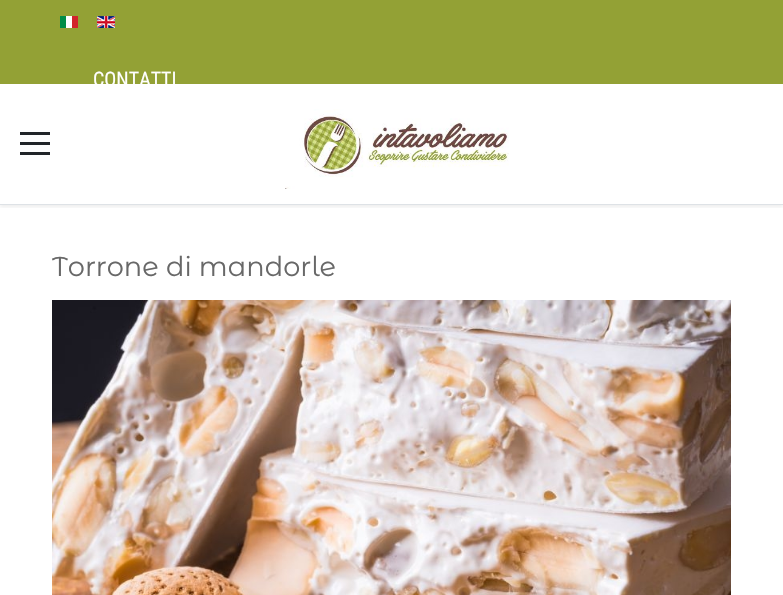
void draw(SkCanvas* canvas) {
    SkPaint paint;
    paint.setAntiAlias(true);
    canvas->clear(0xFFFFFFFF);
    paint.setColor(0xFF93A135);
    canvas->drawRect(SkRect::MakeXYWH(0, 0, 783, 84), paint);
    canvas->drawImageRect(SkImages::DeferredFromEncodedData(SkData::MakeFromFileName("img1.png")), SkRect::MakeXYWH(60, 16, 18, 12), SkSamplingOptions());
    canvas->drawImageRect(SkImages::DeferredFromEncodedData(SkData::MakeFromFileName("img2.png")), SkRect::MakeXYWH(97, 16, 18, 12), SkSamplingOptions());
    SkFont font1(fontMgr->matchFamilyStyle("Roboto Condensed", SkFontStyle::Normal()), 20);
    font1.setSubpixel(true);
    paint.setColor(0xFFFFFFFF);
    canvas->drawString("CONTATTI", 93, 86, font1, paint);
    canvas->save();
    canvas->clipRect(SkRect::MakeXYWH(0, 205, 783, 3));
    paint.setColor(0x12000000);
    paint.setMaskFilter(SkMaskFilter::MakeBlur(kNormal_SkBlurStyle, 2));
    canvas->drawRect(SkRect::MakeXYWH(0, 86, 783, 121), paint);
    paint.setMaskFilter(nullptr);
    canvas->restore();
    paint.setColor(0xFFDEE2E6);
    canvas->drawRect(SkRect::MakeXYWH(0, 204, 783, 1), paint);
    paint.setColor(0xFF212529);
    canvas->drawRect(SkRect::MakeXYWH(20, 142, 30, 3), paint);
    canvas->drawRect(SkRect::MakeXYWH(20, 132, 30, 3), paint);
    canvas->drawRect(SkRect::MakeXYWH(20, 152, 30, 3), paint);
    canvas->drawImageRect(SkImages::DeferredFromEncodedData(SkData::MakeFromFileName("img3.png")), SkRect::MakeXYWH(285, 109, 224, 80), SkSamplingOptions());
    SkFont font2(fontMgr->matchFamilyStyle("Montserrat Alternates", SkFontStyle::Normal()), 27.25f);
    font2.setSubpixel(true);
    paint.setColor(0xFF686868);
    canvas->drawString("Torrone di mandorle", 52, 276, font2, paint);
    canvas->drawImageRect(SkImages::DeferredFromEncodedData(SkData::MakeFromFileName("img4.png")), SkRect::MakeXYWH(52, 300, 679, 295), SkSamplingOptions());
}
